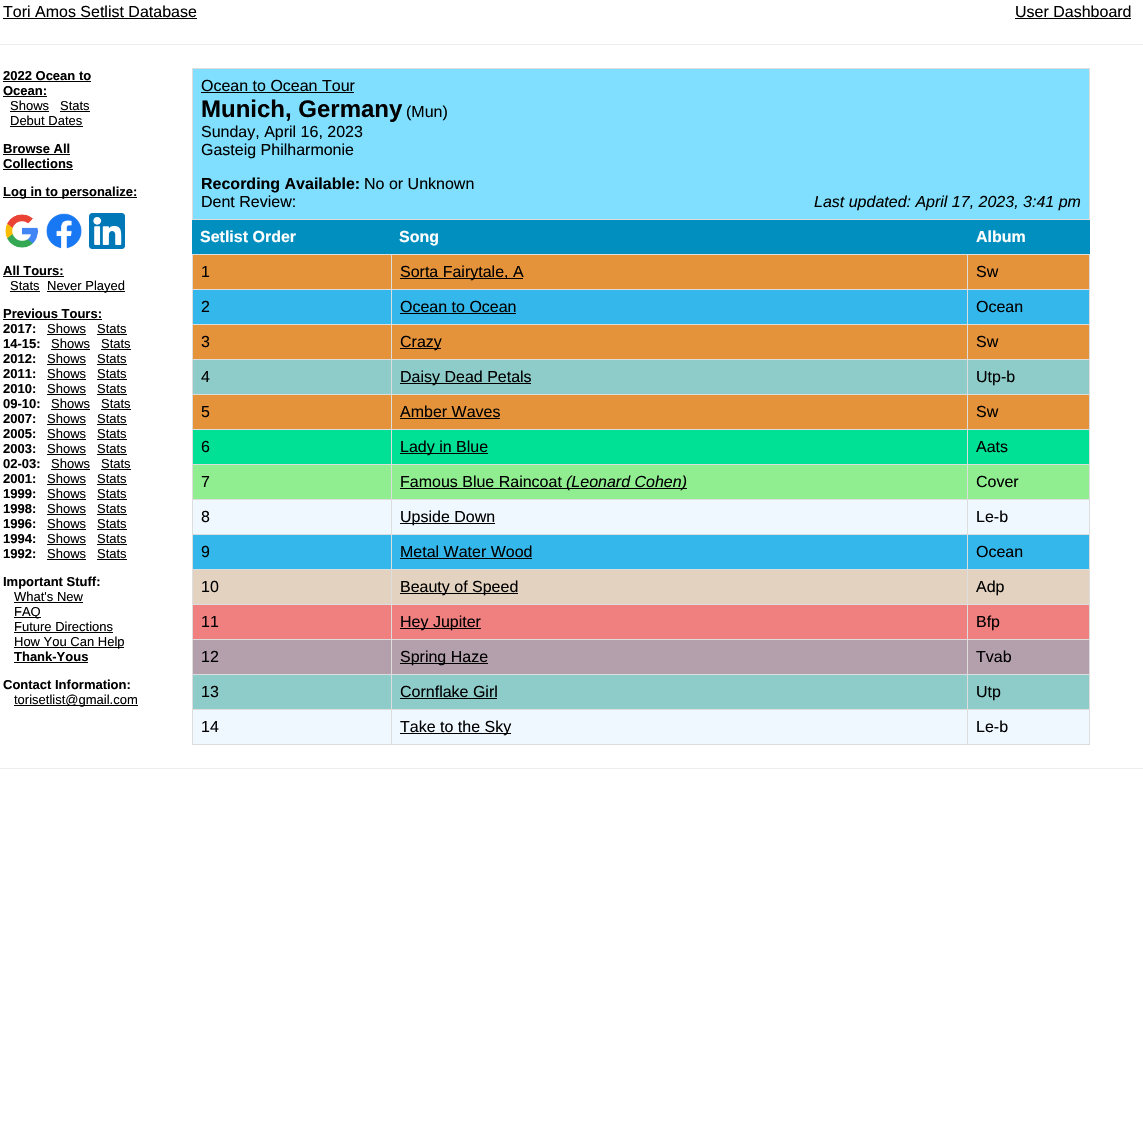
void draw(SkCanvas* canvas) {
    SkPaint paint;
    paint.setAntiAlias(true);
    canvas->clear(0xFFFFFFFF);
    SkFont font1(fontMgr->matchFamilyStyle("Liberation Sans", SkFontStyle::Normal()), 16);
    font1.setSubpixel(true);
    paint.setColor(0xFF000000);
    canvas->drawString("Tori Amos Setlist Database", 3, 17, font1, paint);
    canvas->drawRect(SkRect::MakeXYWH(3, 18, 194, 1), paint);
    canvas->drawString("User Dashboard", 1015, 17, font1, paint);
    canvas->drawRect(SkRect::MakeXYWH(1015, 18, 116, 1), paint);
    paint.setColor(0xFFEEEEEE);
    canvas->drawRect(SkRect::MakeXYWH(0, 44, 1143, 1), paint);
    SkFont font2(fontMgr->matchFamilyStyle("Liberation Sans", SkFontStyle::Bold()), 13);
    font2.setSubpixel(true);
    paint.setColor(0xFF000000);
    canvas->drawString("2022 Ocean to", 3, 80, font2, paint);
    canvas->drawRect(SkRect::MakeXYWH(3, 81, 88, 1), paint);
    canvas->drawString("Ocean:", 3, 95, font2, paint);
    canvas->drawRect(SkRect::MakeXYWH(3, 96, 44, 1), paint);
    SkFont font3(fontMgr->matchFamilyStyle("Liberation Sans", SkFontStyle::Normal()), 13);
    font3.setSubpixel(true);
    canvas->drawString("Shows", 10, 110, font3, paint);
    canvas->drawRect(SkRect::MakeXYWH(10, 111, 39, 1), paint);
    canvas->drawString("Stats", 60, 110, font3, paint);
    canvas->drawRect(SkRect::MakeXYWH(60, 111, 30, 1), paint);
    canvas->drawString("Debut Dates", 10, 125, font3, paint);
    canvas->drawRect(SkRect::MakeXYWH(10, 126, 73, 1), paint);
    canvas->drawString("Browse All", 3, 153, font2, paint);
    canvas->drawRect(SkRect::MakeXYWH(3, 154, 67, 1), paint);
    canvas->drawString("Collections", 3, 168, font2, paint);
    canvas->drawRect(SkRect::MakeXYWH(3, 169, 70, 1), paint);
    canvas->drawRect(SkRect::MakeXYWH(3, 197, 134, 1), paint);
    canvas->drawString("Log in to personalize:", 3, 196, font2, paint);
    canvas->drawImageRect(SkImages::DeferredFromEncodedData(SkData::MakeFromFileName("img1.png")), SkRect::MakeXYWH(5, 214, 33, 34), SkSamplingOptions());
    canvas->drawImageRect(SkImages::DeferredFromEncodedData(SkData::MakeFromFileName("img2.png")), SkRect::MakeXYWH(46, 213, 36, 36), SkSamplingOptions());
    canvas->drawImageRect(SkImages::DeferredFromEncodedData(SkData::MakeFromFileName("img3.png")), SkRect::MakeXYWH(89, 213, 36, 36), SkSamplingOptions());
    canvas->drawString("All Tours:", 3, 275, font2, paint);
    canvas->drawRect(SkRect::MakeXYWH(3, 276, 61, 1), paint);
    canvas->drawString("Stats", 10, 290, font3, paint);
    canvas->drawRect(SkRect::MakeXYWH(10, 291, 30, 1), paint);
    canvas->drawRect(SkRect::MakeXYWH(47, 291, 78, 1), paint);
    canvas->drawString("Never Played", 47, 290, font3, paint);
    canvas->drawString("Previous Tours:", 3, 318, font2, paint);
    canvas->drawRect(SkRect::MakeXYWH(3, 319, 99, 1), paint);
    canvas->drawString("2017:", 3, 333, font2, paint);
    canvas->drawString("Shows", 47, 333, font3, paint);
    canvas->drawRect(SkRect::MakeXYWH(47, 334, 39, 1), paint);
    canvas->drawString("Stats", 97, 333, font3, paint);
    canvas->drawRect(SkRect::MakeXYWH(97, 334, 30, 1), paint);
    canvas->drawString("14-15:", 3, 348, font2, paint);
    canvas->drawString("Shows", 51, 348, font3, paint);
    canvas->drawRect(SkRect::MakeXYWH(51, 349, 39, 1), paint);
    canvas->drawString("Stats", 101, 348, font3, paint);
    canvas->drawRect(SkRect::MakeXYWH(101, 349, 30, 1), paint);
    canvas->drawString("2012:", 3, 363, font2, paint);
    canvas->drawString("Shows", 47, 363, font3, paint);
    canvas->drawRect(SkRect::MakeXYWH(47, 364, 39, 1), paint);
    canvas->drawString("Stats", 97, 363, font3, paint);
    canvas->drawRect(SkRect::MakeXYWH(97, 364, 30, 1), paint);
    canvas->drawString("2011:", 3, 378, font2, paint);
    canvas->drawString("Shows", 47, 378, font3, paint);
    canvas->drawRect(SkRect::MakeXYWH(47, 379, 39, 1), paint);
    canvas->drawString("Stats", 97, 378, font3, paint);
    canvas->drawRect(SkRect::MakeXYWH(97, 379, 30, 1), paint);
    canvas->drawString("2010:", 3, 393, font2, paint);
    canvas->drawString("Shows", 47, 393, font3, paint);
    canvas->drawRect(SkRect::MakeXYWH(47, 394, 39, 1), paint);
    canvas->drawString("Stats", 97, 393, font3, paint);
    canvas->drawRect(SkRect::MakeXYWH(97, 394, 30, 1), paint);
    canvas->drawString("09-10:", 3, 408, font2, paint);
    canvas->drawString("Shows", 51, 408, font3, paint);
    canvas->drawRect(SkRect::MakeXYWH(51, 409, 39, 1), paint);
    canvas->drawString("Stats", 101, 408, font3, paint);
    canvas->drawRect(SkRect::MakeXYWH(101, 409, 30, 1), paint);
    canvas->drawString("2007:", 3, 423, font2, paint);
    canvas->drawString("Shows", 47, 423, font3, paint);
    canvas->drawRect(SkRect::MakeXYWH(47, 424, 39, 1), paint);
    canvas->drawString("Stats", 97, 423, font3, paint);
    canvas->drawRect(SkRect::MakeXYWH(97, 424, 30, 1), paint);
    canvas->drawString("2005:", 3, 438, font2, paint);
    canvas->drawString("Shows", 47, 438, font3, paint);
    canvas->drawRect(SkRect::MakeXYWH(47, 439, 39, 1), paint);
    canvas->drawString("Stats", 97, 438, font3, paint);
    canvas->drawRect(SkRect::MakeXYWH(97, 439, 30, 1), paint);
    canvas->drawString("2003:", 3, 453, font2, paint);
    canvas->drawString("Shows", 47, 453, font3, paint);
    canvas->drawRect(SkRect::MakeXYWH(47, 454, 39, 1), paint);
    canvas->drawString("Stats", 97, 453, font3, paint);
    canvas->drawRect(SkRect::MakeXYWH(97, 454, 30, 1), paint);
    canvas->drawString("02-03:", 3, 468, font2, paint);
    canvas->drawString("Shows", 51, 468, font3, paint);
    canvas->drawRect(SkRect::MakeXYWH(51, 469, 39, 1), paint);
    canvas->drawString("Stats", 101, 468, font3, paint);
    canvas->drawRect(SkRect::MakeXYWH(101, 469, 30, 1), paint);
    canvas->drawString("2001:", 3, 483, font2, paint);
    canvas->drawString("Shows", 47, 483, font3, paint);
    canvas->drawRect(SkRect::MakeXYWH(47, 484, 39, 1), paint);
    canvas->drawString("Stats", 97, 483, font3, paint);
    canvas->drawRect(SkRect::MakeXYWH(97, 484, 30, 1), paint);
    canvas->drawString("1999:", 3, 498, font2, paint);
    canvas->drawString("Shows", 47, 498, font3, paint);
    canvas->drawRect(SkRect::MakeXYWH(47, 499, 39, 1), paint);
    canvas->drawString("Stats", 97, 498, font3, paint);
    canvas->drawRect(SkRect::MakeXYWH(97, 499, 30, 1), paint);
    canvas->drawString("1998:", 3, 513, font2, paint);
    canvas->drawString("Shows", 47, 513, font3, paint);
    canvas->drawRect(SkRect::MakeXYWH(47, 514, 39, 1), paint);
    canvas->drawString("Stats", 97, 513, font3, paint);
    canvas->drawRect(SkRect::MakeXYWH(97, 514, 30, 1), paint);
    canvas->drawString("1996:", 3, 528, font2, paint);
    canvas->drawString("Shows", 47, 528, font3, paint);
    canvas->drawRect(SkRect::MakeXYWH(47, 529, 39, 1), paint);
    canvas->drawString("Stats", 97, 528, font3, paint);
    canvas->drawRect(SkRect::MakeXYWH(97, 529, 30, 1), paint);
    canvas->drawString("1994:", 3, 543, font2, paint);
    canvas->drawString("Shows", 47, 543, font3, paint);
    canvas->drawRect(SkRect::MakeXYWH(47, 544, 39, 1), paint);
    canvas->drawString("Stats", 97, 543, font3, paint);
    canvas->drawRect(SkRect::MakeXYWH(97, 544, 30, 1), paint);
    canvas->drawString("1992:", 3, 558, font2, paint);
    canvas->drawString("Shows", 47, 558, font3, paint);
    canvas->drawRect(SkRect::MakeXYWH(47, 559, 39, 1), paint);
    canvas->drawString("Stats", 97, 558, font3, paint);
    canvas->drawRect(SkRect::MakeXYWH(97, 559, 30, 1), paint);
    canvas->drawString("Important Stuff:", 3, 586, font2, paint);
    canvas->drawString("What's New", 14, 601, font3, paint);
    canvas->drawRect(SkRect::MakeXYWH(14, 602, 69, 1), paint);
    canvas->drawRect(SkRect::MakeXYWH(14, 617, 27, 1), paint);
    canvas->drawString("FAQ", 14, 616, font3, paint);
    canvas->drawString("Future Directions", 14, 631, font3, paint);
    canvas->drawRect(SkRect::MakeXYWH(14, 632, 99, 1), paint);
    canvas->drawRect(SkRect::MakeXYWH(14, 647, 110, 1), paint);
    canvas->drawString("How You Can Help", 14, 646, font3, paint);
    canvas->drawString("Thank-Yous", 14, 661, font2, paint);
    canvas->drawRect(SkRect::MakeXYWH(14, 662, 74, 1), paint);
    canvas->drawString("Contact Information:", 3, 689, font2, paint);
    canvas->drawRect(SkRect::MakeXYWH(14, 705, 124, 1), paint);
    canvas->drawString("torisetlist@gmail.com", 14, 704, font3, paint);
    paint.setColor(0xFF80DFFF);
    canvas->drawRect(SkRect::MakeXYWH(193, 69, 896, 150), paint);
    paint.setColor(0xFFDDDDDD);
    canvas->drawRect(SkRect::MakeXYWH(192, 68, 898, 1), paint);
    canvas->drawRect(SkRect::MakeXYWH(1089, 68, 1, 152), paint);
    canvas->drawRect(SkRect::MakeXYWH(192, 219, 898, 1), paint);
    canvas->drawRect(SkRect::MakeXYWH(192, 68, 1, 152), paint);
    paint.setColor(0xFF000000);
    canvas->drawString("Ocean to Ocean Tour", 201, 91, font1, paint);
    canvas->drawRect(SkRect::MakeXYWH(201, 92, 153, 1), paint);
    SkFont font4(fontMgr->matchFamilyStyle("Liberation Sans", SkFontStyle::Bold()), 24);
    font4.setSubpixel(true);
    canvas->drawString("Munich, Germany", 201, 117, font4, paint);
    canvas->drawString("(Mun)", 406, 117, font1, paint);
    canvas->drawString("Sunday, April 16, 2023", 201, 137, font1, paint);
    canvas->drawString("Gasteig Philharmonie", 201, 155, font1, paint);
    SkFont font5(fontMgr->matchFamilyStyle("Liberation Sans", SkFontStyle::Bold()), 16);
    font5.setSubpixel(true);
    canvas->drawString("Recording Available:", 201, 189, font5, paint);
    canvas->drawString("No or Unknown", 364, 189, font1, paint);
    canvas->drawString("Dent Review:", 201, 207, font1, paint);
    SkFont font6(fontMgr->matchFamilyStyle("Liberation Sans", SkFontStyle::Italic()), 16);
    font6.setSubpixel(true);
    canvas->drawString("Last updated: April 17, 2023, 3:41 pm", 814, 207, font6, paint);
    paint.setColor(0xFF008FBF);
    canvas->drawRect(SkRect::MakeXYWH(192, 220, 898, 34), paint);
    paint.setColor(0xFFFFFFFF);
    canvas->drawString("Setlist Order", 200, 242, font5, paint);
    canvas->drawString("Song", 399, 242, font5, paint);
    canvas->drawString("Album", 976, 242, font5, paint);
    paint.setColor(0xFFE5933B);
    canvas->drawRect(SkRect::MakeXYWH(193, 255, 896, 34), paint);
    paint.setColor(0xFFDDDDDD);
    canvas->drawRect(SkRect::MakeXYWH(967, 254, 123, 1), paint);
    canvas->drawRect(SkRect::MakeXYWH(967, 289, 123, 1), paint);
    paint.setColor(0xFF34B7EB);
    canvas->drawRect(SkRect::MakeXYWH(193, 290, 896, 34), paint);
    paint.setColor(0xFFDDDDDD);
    canvas->drawRect(SkRect::MakeXYWH(967, 324, 123, 1), paint);
    paint.setColor(0xFFE5933B);
    canvas->drawRect(SkRect::MakeXYWH(193, 325, 896, 34), paint);
    paint.setColor(0xFFDDDDDD);
    canvas->drawRect(SkRect::MakeXYWH(967, 359, 123, 1), paint);
    paint.setColor(0xFF8ECCCA);
    canvas->drawRect(SkRect::MakeXYWH(193, 360, 896, 34), paint);
    paint.setColor(0xFFDDDDDD);
    canvas->drawRect(SkRect::MakeXYWH(967, 394, 123, 1), paint);
    paint.setColor(0xFFE5933B);
    canvas->drawRect(SkRect::MakeXYWH(193, 395, 896, 34), paint);
    paint.setColor(0xFFDDDDDD);
    canvas->drawRect(SkRect::MakeXYWH(967, 429, 123, 1), paint);
    paint.setColor(0xFF01E195);
    canvas->drawRect(SkRect::MakeXYWH(193, 430, 896, 34), paint);
    paint.setColor(0xFFDDDDDD);
    canvas->drawRect(SkRect::MakeXYWH(967, 464, 123, 1), paint);
    paint.setColor(0xFF90EE90);
    canvas->drawRect(SkRect::MakeXYWH(193, 465, 896, 34), paint);
    paint.setColor(0xFFDDDDDD);
    canvas->drawRect(SkRect::MakeXYWH(967, 499, 123, 1), paint);
    paint.setColor(0xFFF0F8FF);
    canvas->drawRect(SkRect::MakeXYWH(193, 500, 896, 34), paint);
    paint.setColor(0xFFDDDDDD);
    canvas->drawRect(SkRect::MakeXYWH(967, 534, 123, 1), paint);
    paint.setColor(0xFF34B7EB);
    canvas->drawRect(SkRect::MakeXYWH(193, 535, 896, 34), paint);
    paint.setColor(0xFFDDDDDD);
    canvas->drawRect(SkRect::MakeXYWH(967, 569, 123, 1), paint);
    paint.setColor(0xFFE3D2BF);
    canvas->drawRect(SkRect::MakeXYWH(193, 570, 896, 34), paint);
    paint.setColor(0xFFDDDDDD);
    canvas->drawRect(SkRect::MakeXYWH(967, 604, 123, 1), paint);
    paint.setColor(0xFFF08080);
    canvas->drawRect(SkRect::MakeXYWH(193, 605, 896, 34), paint);
    paint.setColor(0xFFDDDDDD);
    canvas->drawRect(SkRect::MakeXYWH(967, 639, 123, 1), paint);
    paint.setColor(0xFFB4A0AC);
    canvas->drawRect(SkRect::MakeXYWH(193, 640, 896, 34), paint);
    paint.setColor(0xFFDDDDDD);
    canvas->drawRect(SkRect::MakeXYWH(967, 674, 123, 1), paint);
    paint.setColor(0xFF8ECCCA);
    canvas->drawRect(SkRect::MakeXYWH(193, 675, 896, 34), paint);
    paint.setColor(0xFFDDDDDD);
    canvas->drawRect(SkRect::MakeXYWH(967, 709, 123, 1), paint);
    paint.setColor(0xFFF0F8FF);
    canvas->drawRect(SkRect::MakeXYWH(193, 710, 896, 34), paint);
    paint.setColor(0xFFDDDDDD);
    canvas->drawRect(SkRect::MakeXYWH(1089, 709, 1, 36), paint);
    canvas->drawRect(SkRect::MakeXYWH(967, 744, 123, 1), paint);
    canvas->drawRect(SkRect::MakeXYWH(967, 709, 1, 36), paint);
    canvas->drawRect(SkRect::MakeXYWH(391, 709, 577, 1), paint);
    canvas->drawRect(SkRect::MakeXYWH(967, 674, 1, 36), paint);
    canvas->drawRect(SkRect::MakeXYWH(391, 674, 577, 1), paint);
    canvas->drawRect(SkRect::MakeXYWH(967, 639, 1, 36), paint);
    canvas->drawRect(SkRect::MakeXYWH(391, 639, 577, 1), paint);
    canvas->drawRect(SkRect::MakeXYWH(967, 604, 1, 36), paint);
    canvas->drawRect(SkRect::MakeXYWH(391, 604, 577, 1), paint);
    canvas->drawRect(SkRect::MakeXYWH(967, 569, 1, 36), paint);
    canvas->drawRect(SkRect::MakeXYWH(391, 569, 577, 1), paint);
    canvas->drawRect(SkRect::MakeXYWH(967, 534, 1, 36), paint);
    canvas->drawRect(SkRect::MakeXYWH(391, 534, 577, 1), paint);
    canvas->drawRect(SkRect::MakeXYWH(967, 499, 1, 36), paint);
    canvas->drawRect(SkRect::MakeXYWH(391, 499, 577, 1), paint);
    canvas->drawRect(SkRect::MakeXYWH(967, 464, 1, 36), paint);
    canvas->drawRect(SkRect::MakeXYWH(391, 464, 577, 1), paint);
    canvas->drawRect(SkRect::MakeXYWH(967, 429, 1, 36), paint);
    canvas->drawRect(SkRect::MakeXYWH(391, 429, 577, 1), paint);
    canvas->drawRect(SkRect::MakeXYWH(967, 394, 1, 36), paint);
    canvas->drawRect(SkRect::MakeXYWH(391, 394, 577, 1), paint);
    canvas->drawRect(SkRect::MakeXYWH(967, 359, 1, 36), paint);
    canvas->drawRect(SkRect::MakeXYWH(391, 359, 577, 1), paint);
    canvas->drawRect(SkRect::MakeXYWH(967, 324, 1, 36), paint);
    canvas->drawRect(SkRect::MakeXYWH(391, 324, 577, 1), paint);
    canvas->drawRect(SkRect::MakeXYWH(967, 289, 1, 36), paint);
    canvas->drawRect(SkRect::MakeXYWH(391, 289, 577, 1), paint);
    canvas->drawRect(SkRect::MakeXYWH(967, 254, 1, 36), paint);
    canvas->drawRect(SkRect::MakeXYWH(391, 254, 577, 1), paint);
    canvas->drawRect(SkRect::MakeXYWH(391, 744, 577, 1), paint);
    canvas->drawRect(SkRect::MakeXYWH(391, 709, 1, 36), paint);
    canvas->drawRect(SkRect::MakeXYWH(192, 709, 200, 1), paint);
    canvas->drawRect(SkRect::MakeXYWH(391, 674, 1, 36), paint);
    canvas->drawRect(SkRect::MakeXYWH(192, 674, 200, 1), paint);
    canvas->drawRect(SkRect::MakeXYWH(391, 639, 1, 36), paint);
    canvas->drawRect(SkRect::MakeXYWH(192, 639, 200, 1), paint);
    canvas->drawRect(SkRect::MakeXYWH(391, 604, 1, 36), paint);
    canvas->drawRect(SkRect::MakeXYWH(192, 604, 200, 1), paint);
    canvas->drawRect(SkRect::MakeXYWH(391, 569, 1, 36), paint);
    canvas->drawRect(SkRect::MakeXYWH(192, 569, 200, 1), paint);
    canvas->drawRect(SkRect::MakeXYWH(391, 534, 1, 36), paint);
    canvas->drawRect(SkRect::MakeXYWH(192, 534, 200, 1), paint);
    canvas->drawRect(SkRect::MakeXYWH(391, 499, 1, 36), paint);
    canvas->drawRect(SkRect::MakeXYWH(192, 499, 200, 1), paint);
    canvas->drawRect(SkRect::MakeXYWH(391, 464, 1, 36), paint);
    canvas->drawRect(SkRect::MakeXYWH(192, 464, 200, 1), paint);
    canvas->drawRect(SkRect::MakeXYWH(391, 429, 1, 36), paint);
    canvas->drawRect(SkRect::MakeXYWH(192, 429, 200, 1), paint);
    canvas->drawRect(SkRect::MakeXYWH(391, 394, 1, 36), paint);
    canvas->drawRect(SkRect::MakeXYWH(192, 394, 200, 1), paint);
    canvas->drawRect(SkRect::MakeXYWH(391, 359, 1, 36), paint);
    canvas->drawRect(SkRect::MakeXYWH(192, 359, 200, 1), paint);
    canvas->drawRect(SkRect::MakeXYWH(391, 324, 1, 36), paint);
    canvas->drawRect(SkRect::MakeXYWH(192, 324, 200, 1), paint);
    canvas->drawRect(SkRect::MakeXYWH(391, 289, 1, 36), paint);
    canvas->drawRect(SkRect::MakeXYWH(192, 289, 200, 1), paint);
    canvas->drawRect(SkRect::MakeXYWH(391, 254, 1, 36), paint);
    canvas->drawRect(SkRect::MakeXYWH(192, 254, 200, 1), paint);
    canvas->drawRect(SkRect::MakeXYWH(192, 744, 200, 1), paint);
    canvas->drawRect(SkRect::MakeXYWH(192, 709, 1, 36), paint);
    canvas->drawRect(SkRect::MakeXYWH(192, 674, 1, 36), paint);
    canvas->drawRect(SkRect::MakeXYWH(192, 639, 1, 36), paint);
    canvas->drawRect(SkRect::MakeXYWH(192, 604, 1, 36), paint);
    canvas->drawRect(SkRect::MakeXYWH(192, 569, 1, 36), paint);
    canvas->drawRect(SkRect::MakeXYWH(192, 534, 1, 36), paint);
    canvas->drawRect(SkRect::MakeXYWH(192, 499, 1, 36), paint);
    canvas->drawRect(SkRect::MakeXYWH(192, 464, 1, 36), paint);
    canvas->drawRect(SkRect::MakeXYWH(192, 429, 1, 36), paint);
    canvas->drawRect(SkRect::MakeXYWH(192, 394, 1, 36), paint);
    canvas->drawRect(SkRect::MakeXYWH(192, 359, 1, 36), paint);
    canvas->drawRect(SkRect::MakeXYWH(192, 324, 1, 36), paint);
    canvas->drawRect(SkRect::MakeXYWH(192, 289, 1, 36), paint);
    canvas->drawRect(SkRect::MakeXYWH(192, 254, 1, 36), paint);
    paint.setColor(0xFF000000);
    canvas->drawString("1", 201, 277, font1, paint);
    canvas->drawRect(SkRect::MakeXYWH(400, 278, 123, 1), paint);
    canvas->drawString("Sorta Fairytale, A", 400, 277, font1, paint);
    paint.setColor(0xFFDDDDDD);
    canvas->drawRect(SkRect::MakeXYWH(1089, 674, 1, 36), paint);
    canvas->drawRect(SkRect::MakeXYWH(1089, 639, 1, 36), paint);
    canvas->drawRect(SkRect::MakeXYWH(1089, 604, 1, 36), paint);
    canvas->drawRect(SkRect::MakeXYWH(1089, 569, 1, 36), paint);
    canvas->drawRect(SkRect::MakeXYWH(1089, 534, 1, 36), paint);
    canvas->drawRect(SkRect::MakeXYWH(1089, 499, 1, 36), paint);
    canvas->drawRect(SkRect::MakeXYWH(1089, 464, 1, 36), paint);
    canvas->drawRect(SkRect::MakeXYWH(1089, 429, 1, 36), paint);
    canvas->drawRect(SkRect::MakeXYWH(1089, 394, 1, 36), paint);
    canvas->drawRect(SkRect::MakeXYWH(1089, 359, 1, 36), paint);
    canvas->drawRect(SkRect::MakeXYWH(1089, 324, 1, 36), paint);
    canvas->drawRect(SkRect::MakeXYWH(1089, 289, 1, 36), paint);
    canvas->drawRect(SkRect::MakeXYWH(1089, 254, 1, 36), paint);
    paint.setColor(0xFF000000);
    canvas->drawString("Sw", 976, 277, font1, paint);
    canvas->drawString("2", 201, 312, font1, paint);
    canvas->drawString("Ocean to Ocean", 400, 312, font1, paint);
    canvas->drawRect(SkRect::MakeXYWH(400, 313, 116, 1), paint);
    canvas->drawString("Ocean", 976, 312, font1, paint);
    canvas->drawString("3", 201, 347, font1, paint);
    canvas->drawRect(SkRect::MakeXYWH(400, 348, 41, 1), paint);
    canvas->drawString("Crazy", 400, 347, font1, paint);
    canvas->drawString("Sw", 976, 347, font1, paint);
    canvas->drawString("4", 201, 382, font1, paint);
    canvas->drawRect(SkRect::MakeXYWH(400, 383, 131, 1), paint);
    canvas->drawString("Daisy Dead Petals", 400, 382, font1, paint);
    canvas->drawString("Utp-b", 976, 382, font1, paint);
    canvas->drawString("5", 201, 417, font1, paint);
    canvas->drawString("Amber Waves", 400, 417, font1, paint);
    canvas->drawRect(SkRect::MakeXYWH(400, 418, 100, 1), paint);
    canvas->drawString("Sw", 976, 417, font1, paint);
    canvas->drawString("6", 201, 452, font1, paint);
    canvas->drawRect(SkRect::MakeXYWH(400, 453, 88, 1), paint);
    canvas->drawString("Lady in Blue", 400, 452, font1, paint);
    canvas->drawString("Aats", 976, 452, font1, paint);
    canvas->drawString("7", 201, 487, font1, paint);
    canvas->drawString("Famous Blue Raincoat", 400, 487, font1, paint);
    canvas->drawRect(SkRect::MakeXYWH(400, 488, 287, 1), paint);
    canvas->drawString("(Leonard Cohen)", 566, 487, font6, paint);
    canvas->drawString("Cover", 976, 487, font1, paint);
    canvas->drawString("8", 201, 522, font1, paint);
    canvas->drawRect(SkRect::MakeXYWH(400, 523, 95, 1), paint);
    canvas->drawString("Upside Down", 400, 522, font1, paint);
    canvas->drawString("Le-b", 976, 522, font1, paint);
    canvas->drawString("9", 201, 557, font1, paint);
    canvas->drawString("Metal Water Wood", 400, 557, font1, paint);
    canvas->drawRect(SkRect::MakeXYWH(400, 558, 132, 1), paint);
    canvas->drawString("Ocean", 976, 557, font1, paint);
    canvas->drawString("10", 201, 592, font1, paint);
    canvas->drawRect(SkRect::MakeXYWH(400, 593, 118, 1), paint);
    canvas->drawString("Beauty of Speed", 400, 592, font1, paint);
    canvas->drawString("Adp", 976, 592, font1, paint);
    canvas->drawString("11", 201, 627, font1, paint);
    canvas->drawRect(SkRect::MakeXYWH(400, 628, 81, 1), paint);
    canvas->drawString("Hey Jupiter", 400, 627, font1, paint);
    canvas->drawString("Bfp", 976, 627, font1, paint);
    canvas->drawString("12", 201, 662, font1, paint);
    canvas->drawRect(SkRect::MakeXYWH(400, 663, 88, 1), paint);
    canvas->drawString("Spring Haze", 400, 662, font1, paint);
    canvas->drawString("Tvab", 976, 662, font1, paint);
    canvas->drawString("13", 201, 697, font1, paint);
    canvas->drawString("Cornflake Girl", 400, 697, font1, paint);
    canvas->drawRect(SkRect::MakeXYWH(400, 698, 97, 1), paint);
    canvas->drawString("Utp", 976, 697, font1, paint);
    canvas->drawString("14", 201, 732, font1, paint);
    canvas->drawRect(SkRect::MakeXYWH(400, 733, 111, 1), paint);
    canvas->drawString("Take to the Sky", 400, 732, font1, paint);
    canvas->drawString("Le-b", 976, 732, font1, paint);
    paint.setColor(0xFFEEEEEE);
    canvas->drawRect(SkRect::MakeXYWH(0, 768, 1143, 1), paint);
}
